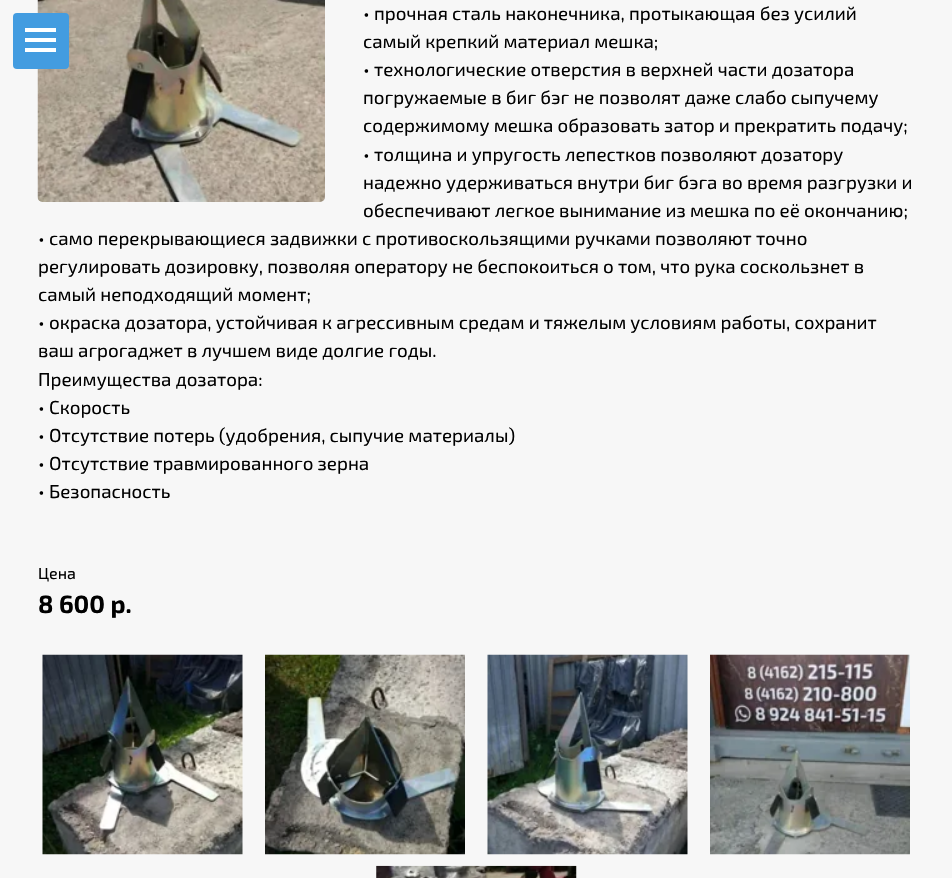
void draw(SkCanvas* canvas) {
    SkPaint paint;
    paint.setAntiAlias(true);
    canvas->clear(0xFFF7F7F7);
    canvas->drawImageRect(SkImages::DeferredFromEncodedData(SkData::MakeFromFileName("img1.png")), SkRect::MakeXYWH(37, 0, 288, 202), SkSamplingOptions());
    SkFont font1(fontMgr->matchFamilyStyle("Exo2", SkFontStyle::Normal()), 18.75f);
    font1.setSubpixel(true);
    paint.setColor(0xFF000000);
    canvas->drawString("• прочная сталь наконечника, протыкающая без усилий", 363, 20, font1, paint);
    canvas->drawString("самый крепкий материал мешка;", 363, 48, font1, paint);
    canvas->drawString("• технологические отверстия в верхней части дозатора", 363, 76, font1, paint);
    canvas->drawString("погружаемые в биг бэг не позволят даже слабо сыпучему", 363, 104, font1, paint);
    canvas->drawString("содержимому мешка образовать затор и прекратить подачу;", 363, 132, font1, paint);
    canvas->drawString("• толщина и упругость лепестков позволяют дозатору", 363, 161, font1, paint);
    canvas->drawString("надежно удерживаться внутри биг бэга во время разгрузки и", 363, 189, font1, paint);
    canvas->drawString("обеспечивают легкое вынимание из мешка по её окончанию;", 363, 217, font1, paint);
    canvas->drawString("• само перекрывающиеся задвижки с противоскользящими ручками позволяют точно", 38, 245, font1, paint);
    canvas->drawString("регулировать дозировку, позволяя оператору не беспокоиться о том, что рука соскользнет в", 38, 273, font1, paint);
    canvas->drawString("самый неподходящий момент;", 38, 301, font1, paint);
    canvas->drawString("• окраска дозатора, устойчивая к агрессивным средам и тяжелым условиям работы, сохранит", 38, 329, font1, paint);
    canvas->drawString("ваш агрогаджет в лучшем виде долгие годы.", 38, 357, font1, paint);
    canvas->drawString("Преимущества дозатора:", 38, 386, font1, paint);
    canvas->drawString("• Скорость", 38, 414, font1, paint);
    canvas->drawString("• Отсутствие потерь (удобрения, сыпучие материалы)", 38, 442, font1, paint);
    canvas->drawString("• Отсутствие травмированного зерна", 38, 470, font1, paint);
    canvas->drawString("• Безопасность", 38, 498, font1, paint);
    SkFont font2(fontMgr->matchFamilyStyle("Exo2", SkFontStyle::Normal()), 16);
    font2.setSubpixel(true);
    canvas->drawString("Цена", 38, 579, font2, paint);
    SkFont font3(fontMgr->matchFamilyStyle("Exo2", SkFontStyle::Bold()), 25);
    font3.setSubpixel(true);
    canvas->drawString("8 600 р.", 38, 613, font3, paint);
    canvas->drawImageRect(SkImages::DeferredFromEncodedData(SkData::MakeFromFileName("img2.png")), SkRect::MakeXYWH(42, 654, 201, 201), SkSamplingOptions());
    canvas->drawImageRect(SkImages::DeferredFromEncodedData(SkData::MakeFromFileName("img3.png")), SkRect::MakeXYWH(265, 654, 200, 201), SkSamplingOptions());
    canvas->drawImageRect(SkImages::DeferredFromEncodedData(SkData::MakeFromFileName("img4.png")), SkRect::MakeXYWH(487, 654, 201, 201), SkSamplingOptions());
    canvas->drawImageRect(SkImages::DeferredFromEncodedData(SkData::MakeFromFileName("img5.png")), SkRect::MakeXYWH(710, 654, 200, 201), SkSamplingOptions());
    canvas->drawImageRect(SkImages::DeferredFromEncodedData(SkData::MakeFromFileName("img6.png")), SkRect::MakeXYWH(376, 865, 201, 13), SkSamplingOptions());
    paint.setColor(0xFF439CE0);
    canvas->drawRoundRect(SkRect::MakeXYWH(13, 13, 56, 56), 4, 4, paint);
    paint.setColor(0xFFFFFFFF);
    canvas->drawRect(SkRect::MakeXYWH(25, 28, 31, 4), paint);
    canvas->drawRect(SkRect::MakeXYWH(25, 38, 31, 4), paint);
    canvas->drawRect(SkRect::MakeXYWH(25, 48, 31, 4), paint);
}
